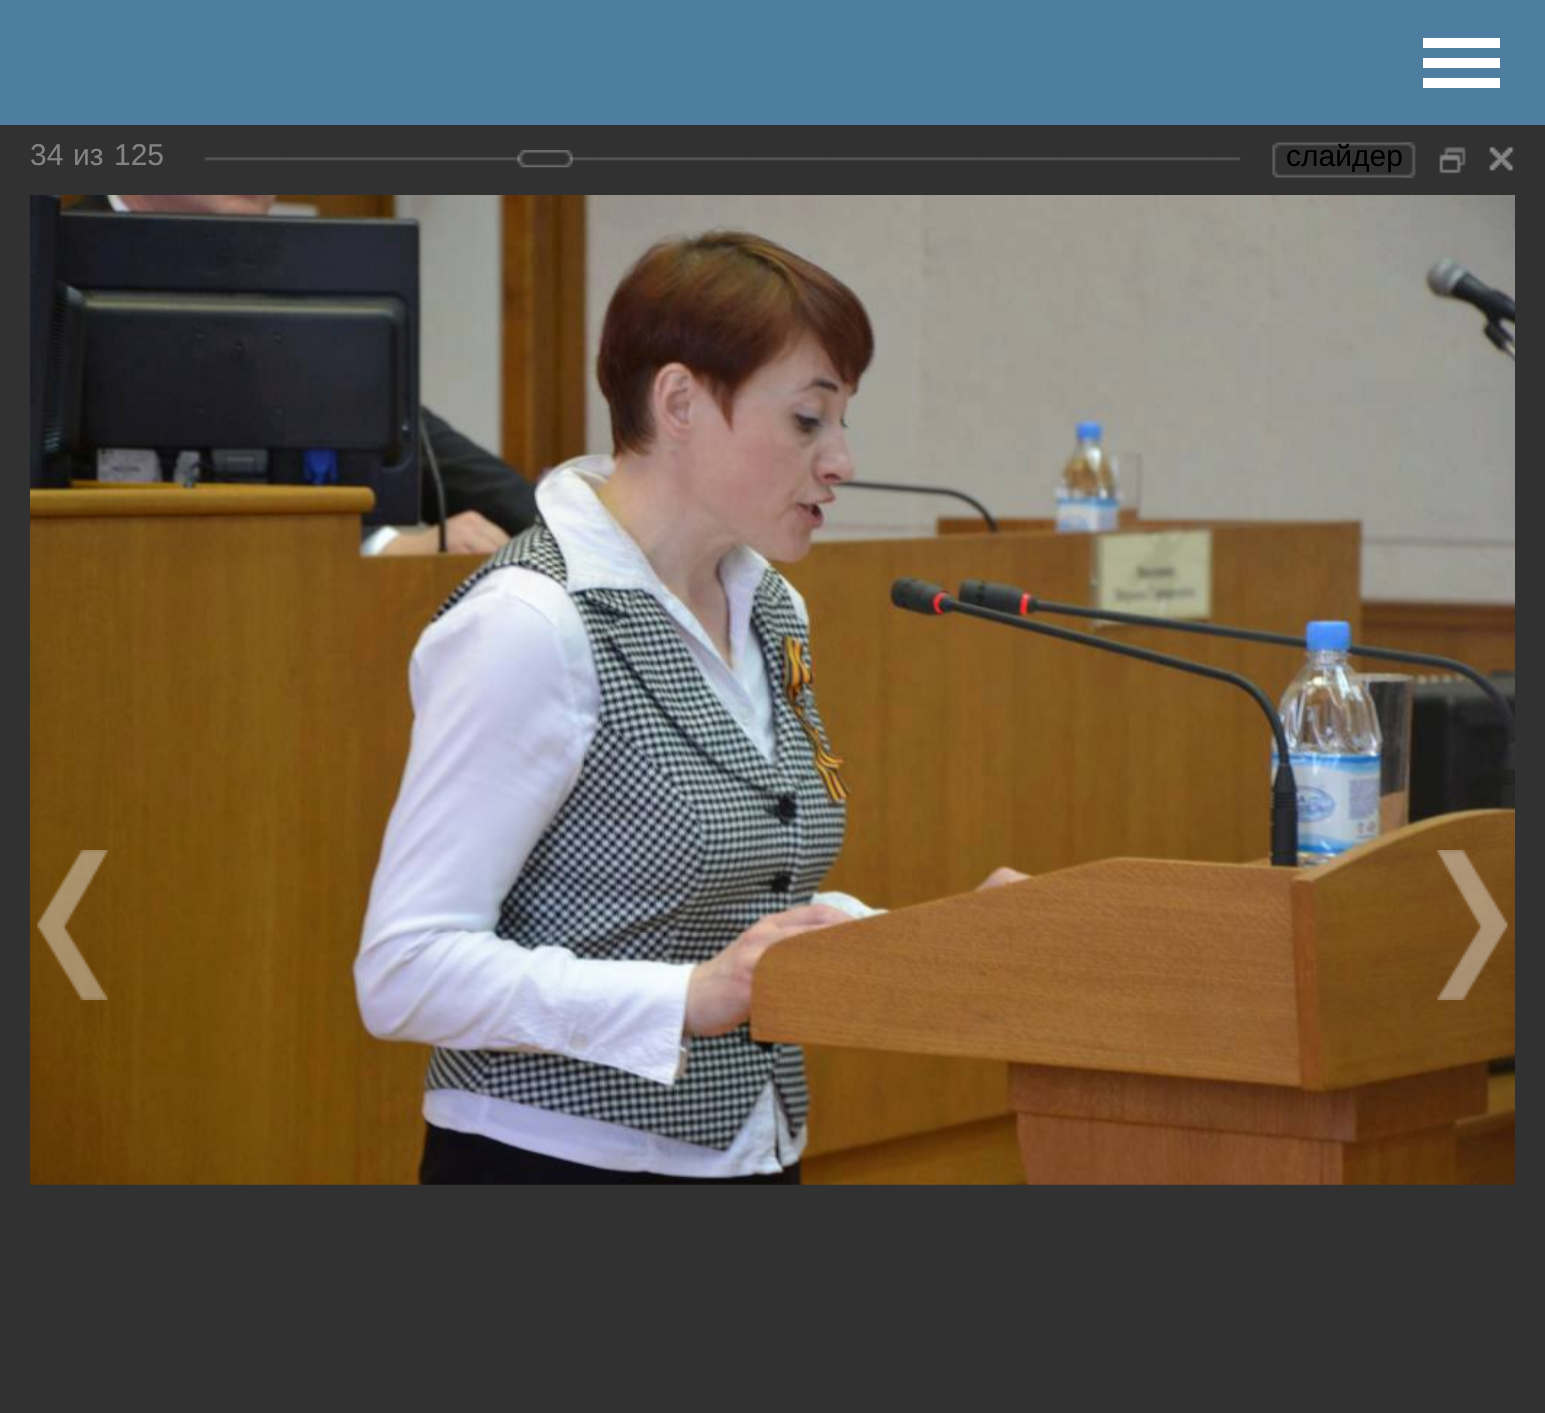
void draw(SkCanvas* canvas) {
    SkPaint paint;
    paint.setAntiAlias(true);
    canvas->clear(0xFF313131);
    paint.setColor(0xFF4D7E9F);
    canvas->drawRect(SkRect::MakeXYWH(0, 0, 1545, 125), paint);
    paint.setColor(0xFFFFFFFF);
    canvas->drawRect(SkRect::MakeXYWH(1423, 58, 77, 10), paint);
    canvas->drawRect(SkRect::MakeXYWH(1423, 38, 77, 10), paint);
    canvas->drawRect(SkRect::MakeXYWH(1423, 78, 77, 10), paint);
    SkFont font1(fontMgr->matchFamilyStyle("Liberation Sans", SkFontStyle::Normal()), 30);
    font1.setSubpixel(true);
    paint.setColor(0xFF838383);
    canvas->drawString("34", 30, 165, font1, paint);
    canvas->drawString("из", 73, 165, font1, paint);
    canvas->drawString("125", 114, 165, font1, paint);
    canvas->drawImageRect(SkImages::DeferredFromEncodedData(SkData::MakeFromFileName("img1.png")), SkRect::MakeXYWH(204, 157, 1037, 4), SkSamplingOptions());
    canvas->drawImageRect(SkImages::DeferredFromEncodedData(SkData::MakeFromFileName("img2.png")), SkRect::MakeXYWH(517, 150, 56, 18), SkSamplingOptions());
    canvas->drawImageRect(SkImages::DeferredFromEncodedData(SkData::MakeFromFileName("img3.png")), SkRect::MakeXYWH(1272, 142, 143, 36), SkSamplingOptions());
    paint.setColor(0xFF000000);
    canvas->drawString("слайдер", 1286, 166, font1, paint);
    canvas->drawImageRect(SkImages::DeferredFromEncodedData(SkData::MakeFromFileName("img4.png")), SkRect::MakeXYWH(1402, 142, 14, 36), SkSamplingOptions());
    canvas->drawImageRect(SkImages::DeferredFromEncodedData(SkData::MakeFromFileName("img5.png")), SkRect::MakeXYWH(1439, 147, 27, 27), SkSamplingOptions());
    canvas->drawImageRect(SkImages::DeferredFromEncodedData(SkData::MakeFromFileName("img6.png")), SkRect::MakeXYWH(1489, 146, 25, 25), SkSamplingOptions());
    canvas->drawImageRect(SkImages::DeferredFromEncodedData(SkData::MakeFromFileName("img7.png")), SkRect::MakeXYWH(30, 195, 1485, 990), SkSamplingOptions());
    canvas->drawImageRect(SkImages::DeferredFromEncodedData(SkData::MakeFromFileName("img8.png")), SkRect::MakeXYWH(37, 850, 71, 150), SkSamplingOptions());
    canvas->drawImageRect(SkImages::DeferredFromEncodedData(SkData::MakeFromFileName("img9.png")), SkRect::MakeXYWH(1437, 850, 71, 150), SkSamplingOptions());
}
